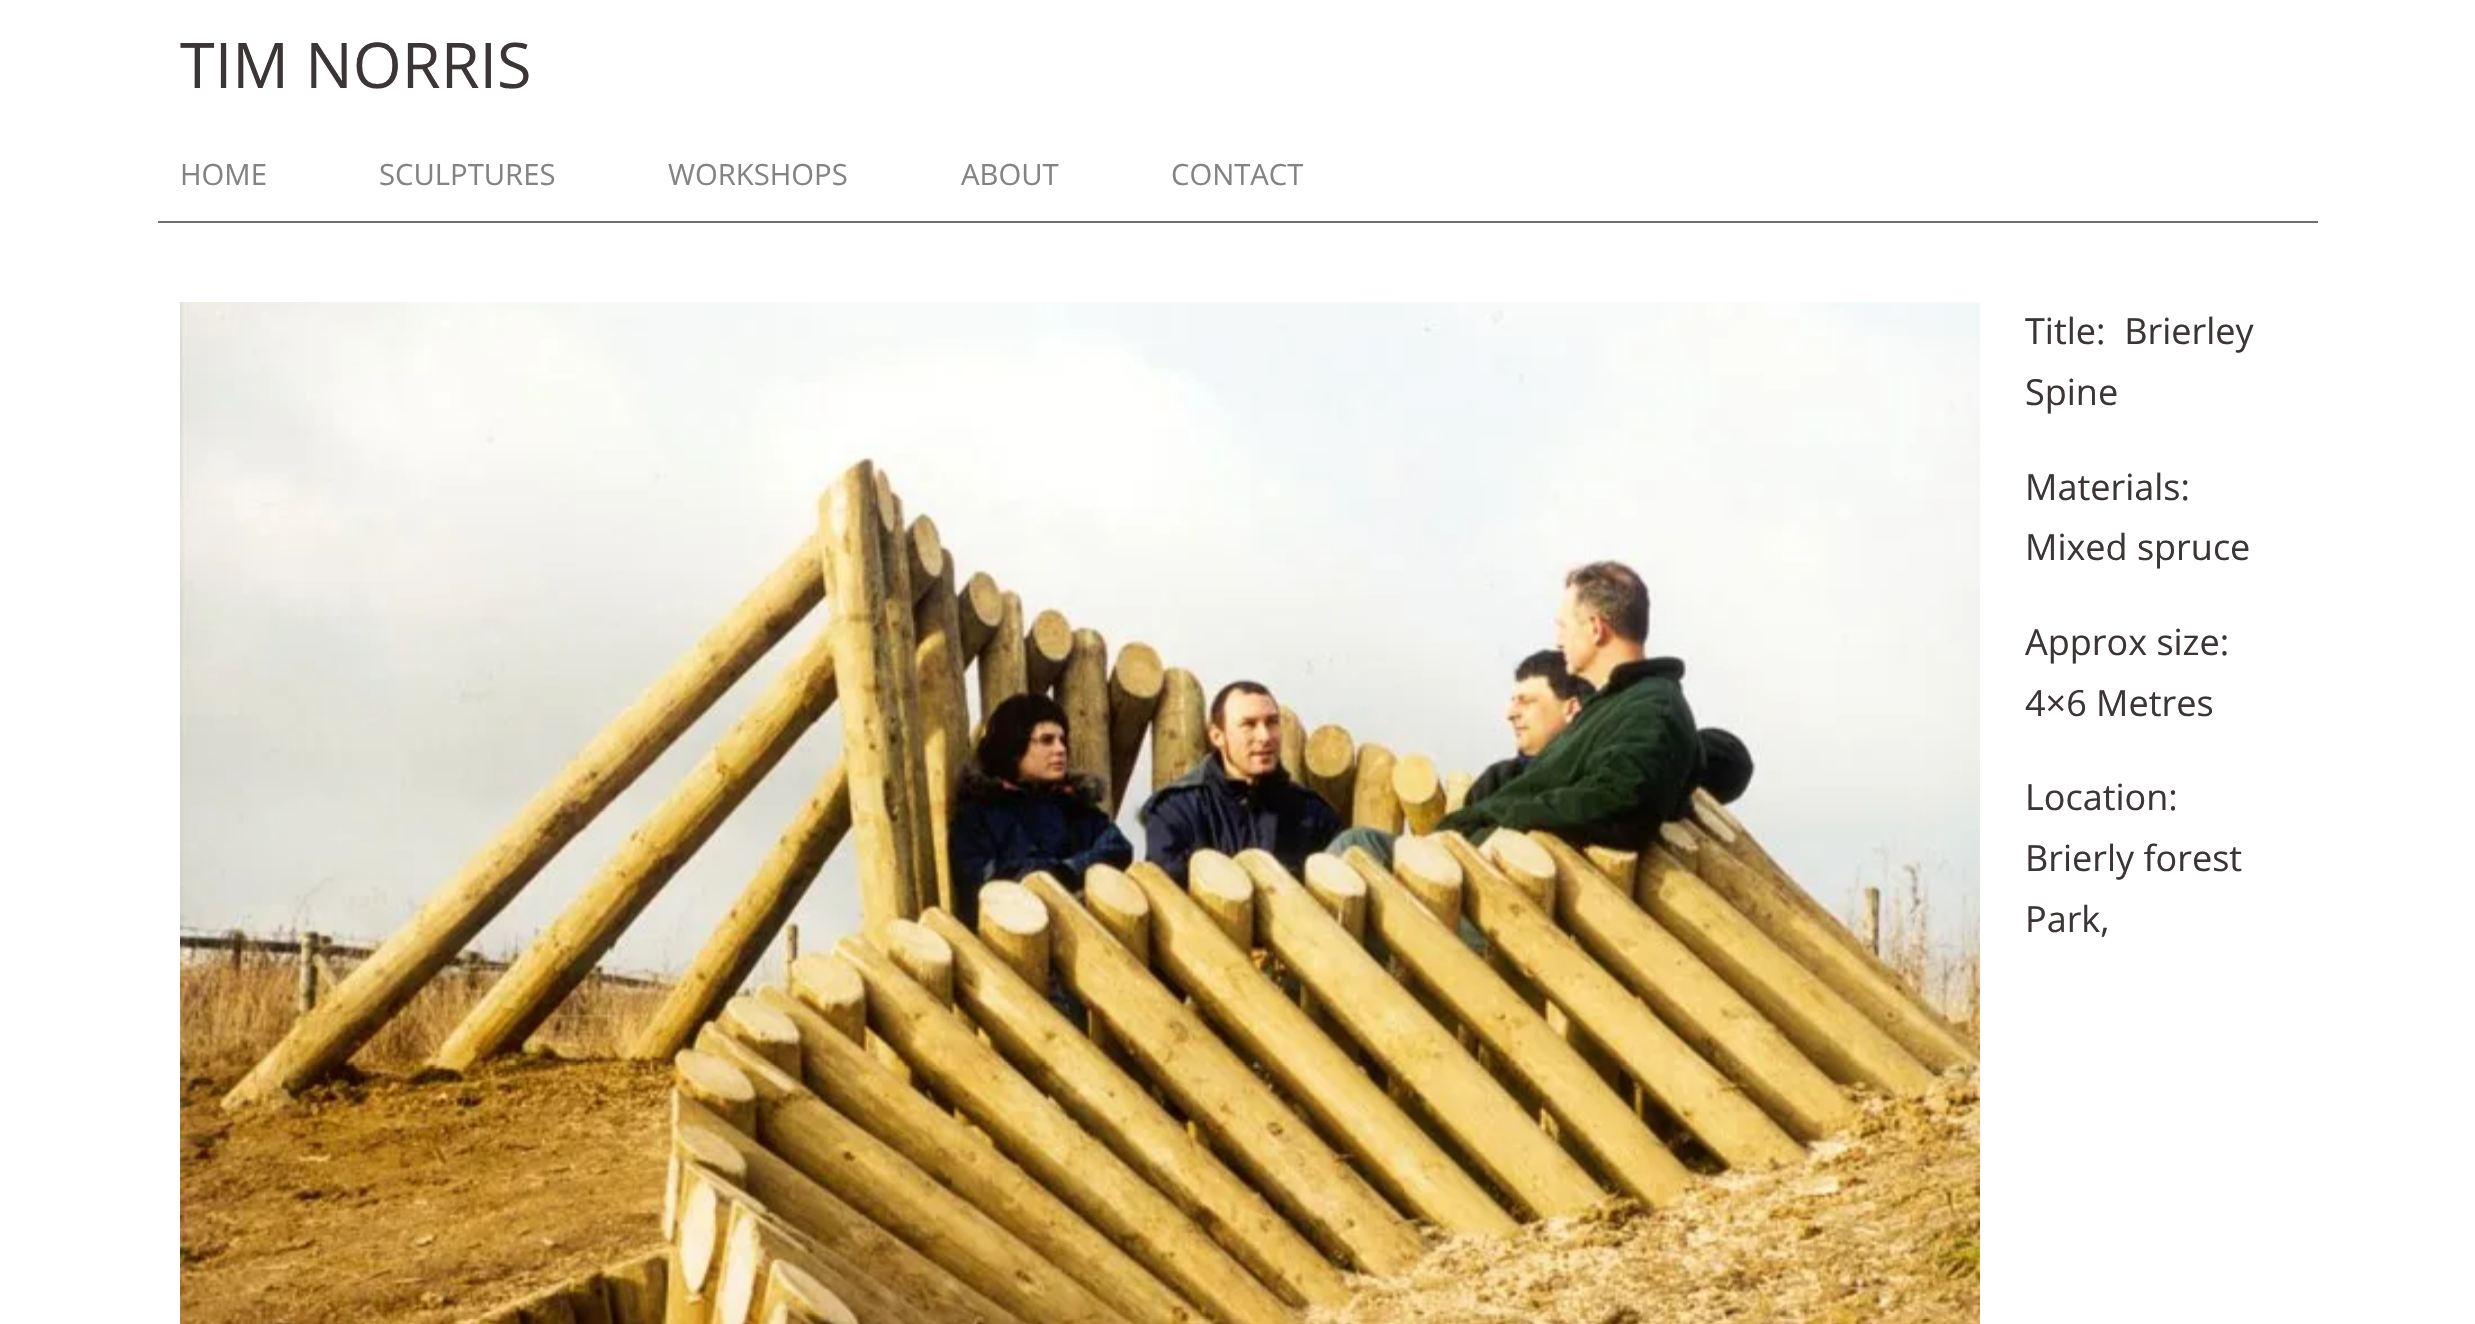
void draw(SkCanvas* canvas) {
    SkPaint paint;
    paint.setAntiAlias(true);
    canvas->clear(0xFFFFFFFF);
    SkFont font1(fontMgr->matchFamilyStyle("Open Sans", SkFontStyle::Normal()), 63);
    font1.setSubpixel(true);
    paint.setColor(0xFF3C3535);
    canvas->drawString("TIM NORRIS", 180, 88, font1, paint);
    paint.setColor(0xFF707070);
    canvas->drawRect(SkRect::MakeXYWH(158, 221, 2160, 2), paint);
    SkFont font2(fontMgr->matchFamilyStyle("Open Sans", SkFontStyle::Normal()), 29.25f);
    font2.setSubpixel(true);
    paint.setColor(0xFF848283);
    canvas->drawString("HOME", 180, 185, font2, paint);
    canvas->drawString("SCULPTURES", 379, 185, font2, paint);
    canvas->drawString("WORKSHOPS", 668, 185, font2, paint);
    canvas->drawString("ABOUT", 961, 185, font2, paint);
    canvas->drawString("CONTACT", 1171, 185, font2, paint);
    canvas->drawImageRect(SkImages::DeferredFromEncodedData(SkData::MakeFromFileName("img1.png")), SkRect::MakeXYWH(180, 302, 1800, 1022), SkSamplingOptions());
    SkFont font3(fontMgr->matchFamilyStyle("Open Sans", SkFontStyle::Normal()), 36);
    font3.setSubpixel(true);
    paint.setColor(0xFF3C3535);
    canvas->drawString("Title:  Brierley", 2025, 344, font3, paint);
    canvas->drawString("Spine", 2025, 405, font3, paint);
    canvas->drawString("Materials:", 2025, 500, font3, paint);
    canvas->drawString("Mixed spruce", 2025, 560, font3, paint);
    canvas->drawString("Approx size:", 2025, 655, font3, paint);
    canvas->drawString("4×6 Metres", 2025, 716, font3, paint);
    canvas->drawString("Location:", 2025, 810, font3, paint);
    canvas->drawString("Brierly forest", 2025, 871, font3, paint);
    canvas->drawString("Park,", 2025, 932, font3, paint);
}
